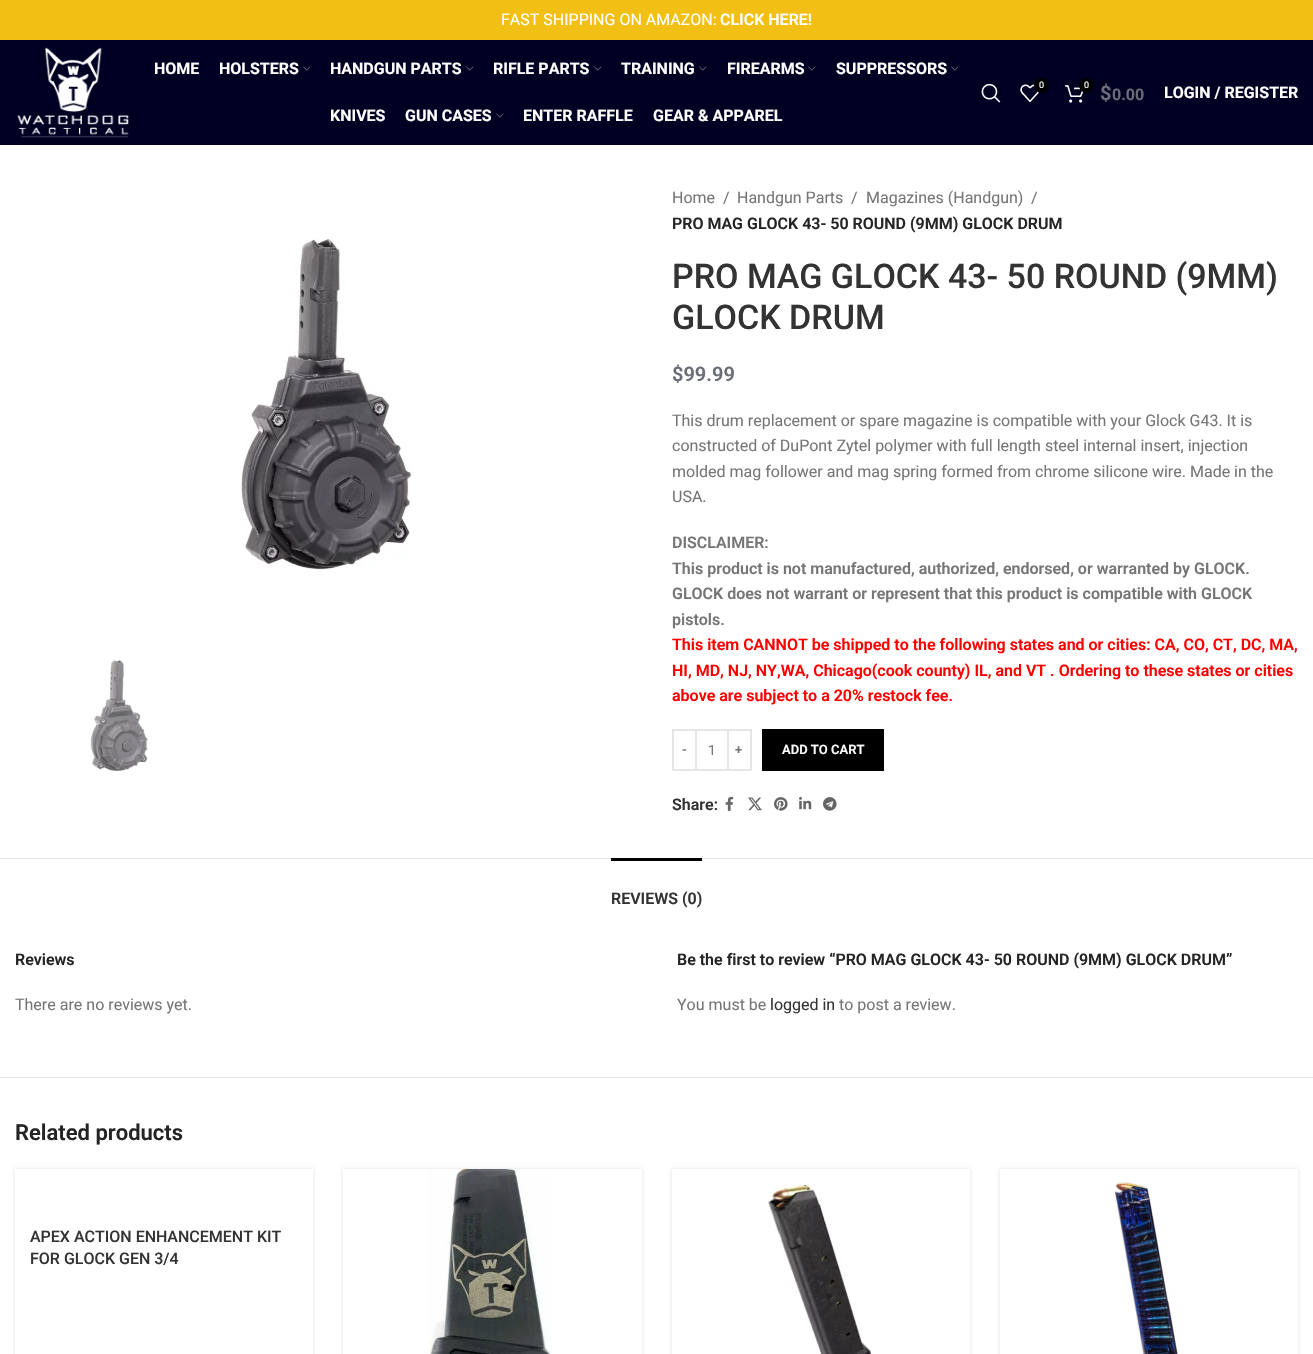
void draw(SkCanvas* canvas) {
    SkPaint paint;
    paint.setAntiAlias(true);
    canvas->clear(0xFFFFFFFF);
    paint.setColor(0xFFF2C014);
    canvas->drawRect(SkRect::MakeXYWH(0, 0, 1313, 40), paint);
    SkFont font1(fontMgr->matchFamilyStyle("Roboto", SkFontStyle::Normal()), 16);
    font1.setSubpixel(true);
    paint.setColor(0xFFFFFFFF);
    canvas->drawString("FAST SHIPPING ON AMAZON:", 501, 25, font1, paint);
    SkFont font2(fontMgr->matchFamilyStyle("Roboto", SkFontStyle(600, SkFontStyle::kNormal_Width, SkFontStyle::kUpright_Slant)), 16);
    font2.setSubpixel(true);
    canvas->drawString("CLICK HERE!", 720, 25, font2, paint);
    paint.setColor(0xFF000023);
    canvas->drawRect(SkRect::MakeXYWH(0, 40, 1313, 105), paint);
    canvas->drawImageRect(SkImages::DeferredFromEncodedData(SkData::MakeFromFileName("img1.png")), SkRect::MakeXYWH(17, 47, 112, 91), SkSamplingOptions());
    SkFont font3(fontMgr->matchFamilyStyle("Roboto", SkFontStyle::Bold()), 16);
    font3.setSubpixel(true);
    paint.setColor(0xFFFFFFFF);
    canvas->drawString("HOME", 154, 74, font3, paint);
    canvas->drawString("HOLSTERS", 219, 74, font3, paint);
    canvas->drawImageRect(SkImages::DeferredFromEncodedData(SkData::MakeFromFileName("img2.png")), SkRect::MakeXYWH(303, 66, 8, 5), SkSamplingOptions());
    canvas->drawString("HANDGUN PARTS", 330, 74, font3, paint);
    canvas->drawImageRect(SkImages::DeferredFromEncodedData(SkData::MakeFromFileName("img2.png")), SkRect::MakeXYWH(466, 66, 8, 5), SkSamplingOptions());
    canvas->drawString("RIFLE PARTS", 493, 74, font3, paint);
    canvas->drawImageRect(SkImages::DeferredFromEncodedData(SkData::MakeFromFileName("img2.png")), SkRect::MakeXYWH(594, 66, 8, 5), SkSamplingOptions());
    canvas->drawString("TRAINING", 621, 74, font3, paint);
    canvas->drawImageRect(SkImages::DeferredFromEncodedData(SkData::MakeFromFileName("img2.png")), SkRect::MakeXYWH(699, 66, 8, 5), SkSamplingOptions());
    canvas->drawString("FIREARMS", 727, 74, font3, paint);
    canvas->drawImageRect(SkImages::DeferredFromEncodedData(SkData::MakeFromFileName("img2.png")), SkRect::MakeXYWH(808, 66, 8, 5), SkSamplingOptions());
    canvas->drawString("SUPPRESSORS", 836, 74, font3, paint);
    canvas->drawImageRect(SkImages::DeferredFromEncodedData(SkData::MakeFromFileName("img2.png")), SkRect::MakeXYWH(951, 66, 8, 5), SkSamplingOptions());
    canvas->drawString("KNIVES", 330, 121, font3, paint);
    canvas->drawString("GUN CASES", 405, 121, font3, paint);
    canvas->drawImageRect(SkImages::DeferredFromEncodedData(SkData::MakeFromFileName("img2.png")), SkRect::MakeXYWH(496, 113, 8, 5), SkSamplingOptions());
    canvas->drawString("ENTER RAFFLE", 523, 121, font3, paint);
    canvas->drawString("GEAR & APPAREL", 653, 121, font3, paint);
    canvas->drawImageRect(SkImages::DeferredFromEncodedData(SkData::MakeFromFileName("img3.png")), SkRect::MakeXYWH(981, 83, 20, 20), SkSamplingOptions());
    canvas->drawImageRect(SkImages::DeferredFromEncodedData(SkData::MakeFromFileName("img4.png")), SkRect::MakeXYWH(1020, 84, 20, 18), SkSamplingOptions());
    paint.setColor(0xFF000000);
    canvas->drawCircle(1041.5f, 85.5f, 7.5f, paint);
    SkFont font4(fontMgr->matchFamilyStyle("Roboto", SkFontStyle::Normal()), 9);
    font4.setSubpixel(true);
    paint.setColor(0xFFFFFFFF);
    canvas->drawString("0", 1039, 88, font4, paint);
    canvas->drawImageRect(SkImages::DeferredFromEncodedData(SkData::MakeFromFileName("img5.png")), SkRect::MakeXYWH(1065, 85, 19, 18), SkSamplingOptions());
    paint.setColor(0xFF000000);
    canvas->drawCircle(1086.5f, 85.5f, 7.5f, paint);
    paint.setColor(0xFFFFFFFF);
    canvas->drawString("0", 1084, 88, font4, paint);
    SkFont font5(fontMgr->matchFamilyStyle("Roboto", SkFontStyle::Bold()), 20);
    font5.setSubpixel(true);
    paint.setColor(0xFF686D76);
    canvas->drawString("$", 1100, 100, font5, paint);
    canvas->drawString("0.00", 1112, 100, font3, paint);
    paint.setColor(0xFFFFFFFF);
    canvas->drawString("LOGIN / REGISTER", 1164, 98, font3, paint);
    canvas->drawImageRect(SkImages::DeferredFromEncodedData(SkData::MakeFromFileName("img6.png")), SkRect::MakeXYWH(241, 238, 170, 332), SkSamplingOptions());
    canvas->drawImageRect(SkImages::DeferredFromEncodedData(SkData::MakeFromFileName("img7.png")), SkRect::MakeXYWH(90, 659, 58, 112), SkSamplingOptions());
    paint.setColor(0xFF767676);
    canvas->drawString("Home", 672, 203, font1, paint);
    canvas->drawString("/", 723, 203, font1, paint);
    canvas->drawString("Handgun Parts", 737, 203, font1, paint);
    canvas->drawString("/", 851, 203, font1, paint);
    canvas->drawString("Magazines (Handgun)", 866, 203, font1, paint);
    canvas->drawString("/", 1031, 203, font1, paint);
    paint.setColor(0xFF242424);
    canvas->drawString("PRO MAG GLOCK 43- 50 ROUND (9MM) GLOCK DRUM", 672, 229, font2, paint);
    SkFont font6(fontMgr->matchFamilyStyle("Roboto", SkFontStyle(500, SkFontStyle::kNormal_Width, SkFontStyle::kUpright_Slant)), 34);
    font6.setSubpixel(true);
    paint.setColor(0xFF333333);
    canvas->drawString("PRO MAG GLOCK 43- 50 ROUND (9MM)", 672, 288, font6, paint);
    canvas->drawString("GLOCK DRUM", 672, 329, font6, paint);
    SkFont font7(fontMgr->matchFamilyStyle("Roboto", SkFontStyle(600, SkFontStyle::kNormal_Width, SkFontStyle::kUpright_Slant)), 20);
    font7.setSubpixel(true);
    paint.setColor(0xFF686D76);
    canvas->drawString("$99.99", 672, 381, font7, paint);
    paint.setColor(0xFF767676);
    canvas->drawString("This drum replacement or spare magazine is compatible with your Glock G43. It is", 672, 426, font1, paint);
    canvas->drawString("constructed of DuPont Zytel polymer with full length steel internal insert, injection", 672, 451, font1, paint);
    canvas->drawString("molded mag follower and mag spring formed from chrome silicone wire. Made in the", 672, 477, font1, paint);
    canvas->drawString("USA.", 672, 502, font1, paint);
    canvas->drawString("DISCLAIMER:", 672, 548, font2, paint);
    canvas->drawString("This product is not manufactured, authorized, endorsed, or warranted by GLOCK.", 672, 574, font2, paint);
    canvas->drawString("GLOCK does not warrant or represent that this product is compatible with GLOCK", 672, 599, font2, paint);
    canvas->drawString("pistols.", 672, 625, font2, paint);
    paint.setColor(0xFFFF0000);
    canvas->drawString("This item CANNOT be shipped to the following states and or cities: CA, CO, CT, DC, MA,", 672, 650, font2, paint);
    canvas->drawString("HI, MD, NJ, NY,WA, Chicago(cook county) IL, and VT . Ordering to these states or cities", 672, 676, font2, paint);
    canvas->drawString("above are subject to a 20% restock fee.", 672, 701, font2, paint);
    paint.setStyle(SkPaint::kStroke_Style);
    paint.setStrokeWidth(2);
    paint.setColor(0xFFE6E6E6);
    canvas->drawRect(SkRect::MakeXYWH(673, 730, 23, 40), paint);
    SkFont font8(fontMgr->matchFamilyStyle("Roboto", SkFontStyle(600, SkFontStyle::kNormal_Width, SkFontStyle::kUpright_Slant)), 13);
    font8.setSubpixel(true);
    paint.setStyle(SkPaint::kFill_Style);
    paint.setColor(0xFF767676);
    canvas->drawString("-", 682, 754, font8, paint);
    paint.setColor(0xFFE6E6E6);
    canvas->drawRect(SkRect::MakeXYWH(697, 729, 30, 2), paint);
    canvas->drawRect(SkRect::MakeXYWH(697, 769, 30, 2), paint);
    SkFont font9(fontMgr->matchFamilyStyle("Roboto", SkFontStyle::Normal()), 14);
    font9.setSubpixel(true);
    paint.setColor(0xFF767676);
    canvas->drawString("1", 708, 755, font9, paint);
    paint.setStyle(SkPaint::kStroke_Style);
    paint.setColor(0xFFE6E6E6);
    canvas->drawRect(SkRect::MakeXYWH(728, 730, 23, 40), paint);
    paint.setStyle(SkPaint::kFill_Style);
    paint.setColor(0xFF767676);
    canvas->drawString("+", 735, 754, font8, paint);
    paint.setColor(0xFF000000);
    canvas->drawRect(SkRect::MakeXYWH(762, 729, 122, 42), paint);
    paint.setColor(0xFFFFFFFF);
    canvas->drawString("ADD TO CART", 782, 754, font8, paint);
    paint.setColor(0xFF333333);
    canvas->drawString("Share:", 672, 810, font2, paint);
    canvas->drawImageRect(SkImages::DeferredFromEncodedData(SkData::MakeFromFileName("img8.png")), SkRect::MakeXYWH(725, 796, 9, 15), SkSamplingOptions());
    canvas->drawImageRect(SkImages::DeferredFromEncodedData(SkData::MakeFromFileName("img9.png")), SkRect::MakeXYWH(748, 797, 14, 14), SkSamplingOptions());
    canvas->drawImageRect(SkImages::DeferredFromEncodedData(SkData::MakeFromFileName("img10.png")), SkRect::MakeXYWH(774, 797, 14, 14), SkSamplingOptions());
    canvas->drawImageRect(SkImages::DeferredFromEncodedData(SkData::MakeFromFileName("img11.png")), SkRect::MakeXYWH(799, 796, 13, 14), SkSamplingOptions());
    canvas->drawImageRect(SkImages::DeferredFromEncodedData(SkData::MakeFromFileName("img12.png")), SkRect::MakeXYWH(823, 797, 14, 14), SkSamplingOptions());
    paint.setColor(0xFFE4E4E4);
    canvas->drawRect(SkRect::MakeXYWH(0, 858, 1313, 1), paint);
    canvas->drawRect(SkRect::MakeXYWH(0, 1077, 1313, 1), paint);
    paint.setColor(0xFF000000);
    canvas->drawRect(SkRect::MakeXYWH(611, 858, 91, 3), paint);
    paint.setColor(0xFF333333);
    canvas->drawString("REVIEWS (0)", 611, 904, font2, paint);
    paint.setColor(0xFF242424);
    canvas->drawString("Reviews", 15, 965, font2, paint);
    paint.setColor(0xFF767676);
    canvas->drawString("There are no reviews yet.", 15, 1010, font1, paint);
    paint.setColor(0xFF242424);
    canvas->drawString("Be the first to review “PRO MAG GLOCK 43- 50 ROUND (9MM) GLOCK DRUM”", 677, 965, font2, paint);
    paint.setColor(0xFF767676);
    canvas->drawString("You must be", 677, 1010, font1, paint);
    paint.setColor(0xFF333333);
    canvas->drawString("logged in", 770, 1010, font1, paint);
    paint.setColor(0xFF767676);
    canvas->drawString("to post a review.", 839, 1010, font1, paint);
    SkFont font10(fontMgr->matchFamilyStyle("Roboto", SkFontStyle(600, SkFontStyle::kNormal_Width, SkFontStyle::kUpright_Slant)), 22);
    font10.setSubpixel(true);
    paint.setColor(0xFF242424);
    canvas->drawString("Related products", 15, 1140, font10, paint);
    canvas->save();
    canvas->clipPath(SkPathBuilder(SkPathFillType::kEvenOdd).moveTo(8, 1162).lineTo(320, 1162).lineTo(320, 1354).lineTo(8, 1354).close().moveTo(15, 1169).lineTo(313, 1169).lineTo(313, 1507).lineTo(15, 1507).close().detach(), true);
    paint.setColor(0x1F000000);
    paint.setMaskFilter(SkMaskFilter::MakeBlur(kNormal_SkBlurStyle, 2));
    canvas->drawRect(SkRect::MakeXYWH(15, 1169, 298, 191), paint);
    paint.setMaskFilter(nullptr);
    canvas->restore();
    SkFont font11(fontMgr->matchFamilyStyle("Roboto", SkFontStyle(500, SkFontStyle::kNormal_Width, SkFontStyle::kUpright_Slant)), 16);
    font11.setSubpixel(true);
    paint.setColor(0xFF333333);
    canvas->drawString("APEX ACTION ENHANCEMENT KIT", 30, 1242, font11, paint);
    canvas->drawString("FOR GLOCK GEN 3/4", 30, 1264, font11, paint);
    canvas->save();
    canvas->clipPath(SkPathBuilder(SkPathFillType::kEvenOdd).moveTo(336, 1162).lineTo(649, 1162).lineTo(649, 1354).lineTo(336, 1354).close().moveTo(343, 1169).lineTo(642, 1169).lineTo(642, 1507).lineTo(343, 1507).close().detach(), true);
    paint.setColor(0x1F000000);
    paint.setMaskFilter(SkMaskFilter::MakeBlur(kNormal_SkBlurStyle, 2));
    canvas->drawRect(SkRect::MakeXYWH(343, 1169, 299, 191), paint);
    paint.setMaskFilter(nullptr);
    canvas->restore();
    canvas->drawImageRect(SkImages::DeferredFromEncodedData(SkData::MakeFromFileName("img13.png")), SkRect::MakeXYWH(428, 1169, 123, 185), SkSamplingOptions());
    canvas->save();
    canvas->clipPath(SkPathBuilder(SkPathFillType::kEvenOdd).moveTo(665, 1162).lineTo(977, 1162).lineTo(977, 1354).lineTo(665, 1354).close().moveTo(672, 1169).lineTo(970, 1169).lineTo(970, 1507).lineTo(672, 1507).close().detach(), true);
    paint.setMaskFilter(SkMaskFilter::MakeBlur(kNormal_SkBlurStyle, 2));
    canvas->drawRect(SkRect::MakeXYWH(672, 1169, 298, 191), paint);
    paint.setMaskFilter(nullptr);
    canvas->restore();
    canvas->drawImageRect(SkImages::DeferredFromEncodedData(SkData::MakeFromFileName("img14.png")), SkRect::MakeXYWH(768, 1184, 104, 170), SkSamplingOptions());
    canvas->save();
    canvas->clipPath(SkPathBuilder(SkPathFillType::kEvenOdd).moveTo(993, 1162).lineTo(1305, 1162).lineTo(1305, 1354).lineTo(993, 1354).close().moveTo(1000, 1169).lineTo(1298, 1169).lineTo(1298, 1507).lineTo(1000, 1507).close().detach(), true);
    paint.setMaskFilter(SkMaskFilter::MakeBlur(kNormal_SkBlurStyle, 2));
    canvas->drawRect(SkRect::MakeXYWH(1000, 1169, 298, 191), paint);
    paint.setMaskFilter(nullptr);
    canvas->restore();
    canvas->drawImageRect(SkImages::DeferredFromEncodedData(SkData::MakeFromFileName("img15.png")), SkRect::MakeXYWH(1114, 1181, 65, 173), SkSamplingOptions());
}
